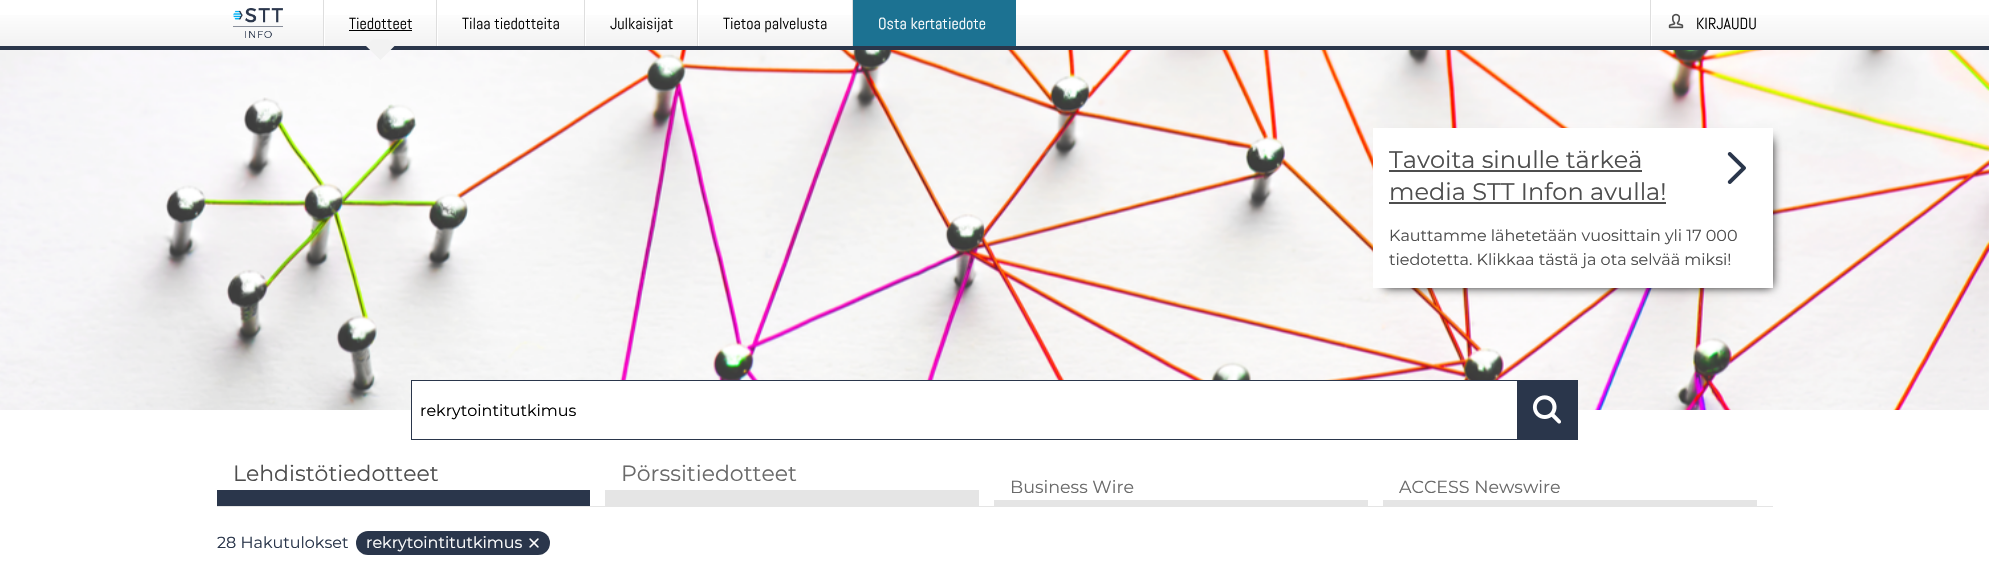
void draw(SkCanvas* canvas) {
    SkPaint paint;
    paint.setAntiAlias(true);
    canvas->clear(0xFFFFFFFF);
    {
        const SkColor colors[] = {0xFFFFFFFF, 0xFFF2F2F2};
        const float stops[] = {0.16f, 1};
        const SkPoint ends[] = {{995, 0}, {995, 46}};
        paint.setShader(SkGradientShader::MakeLinear(ends, colors, stops, 2, SkTileMode::kClamp));
        paint.setAlpha(255);
    }
    canvas->drawRect(SkRect::MakeXYWH(0, 15, 1989, 31), paint);
    paint.setShader(nullptr);
    paint.setColor(0xFF2A364B);
    canvas->drawRect(SkRect::MakeXYWH(0, 46, 1989, 4), paint);
    canvas->drawImageRect(SkImages::DeferredFromEncodedData(SkData::MakeFromFileName("img1.png")), SkRect::MakeXYWH(233, 8, 50, 30), SkSamplingOptions());
    paint.setColor(0xFFFFFFFF);
    canvas->drawRect(SkRect::MakeXYWH(324, 15, 1, 31), paint);
    paint.setColor(0xFFDEDEDE);
    canvas->drawRect(SkRect::MakeXYWH(323, 0, 1, 46), paint);
    SkFont font1(fontMgr->matchFamilyStyle("Abel", SkFontStyle::Normal()), 16);
    font1.setSubpixel(true);
    paint.setColor(0xFF000000);
    canvas->drawString("Tiedotteet", 349, 29, font1, paint);
    canvas->drawRect(SkRect::MakeXYWH(349, 30, 63, 1), paint);
    canvas->drawImageRect(SkImages::DeferredFromEncodedData(SkData::MakeFromFileName("img3.png")), SkRect::MakeXYWH(0, 50, 1989, 360), SkSamplingOptions());
    paint.setColor(0xFFF2F2F2);
    canvas->drawPath(SkPathBuilder().moveTo(380.5f, 32).lineTo(394.5f, 46).lineTo(380.5f, 60).lineTo(366, 46).close().detach(), paint);
    {
        const SkColor colors[] = {0xFFFFFFFF, 0xFFF2F2F2};
        const float stops[] = {0.16f, 1};
        const SkPoint ends[] = {{381, 0}, {381, 46}};
        paint.setShader(SkGradientShader::MakeLinear(ends, colors, stops, 2, SkTileMode::kClamp));
        paint.setAlpha(255);
    }
    canvas->drawRect(SkRect::MakeXYWH(374, 32, 13, 7), paint);
    paint.setShader(nullptr);
    paint.setColor(0xFFFFFFFF);
    canvas->drawRect(SkRect::MakeXYWH(437, 15, 1, 31), paint);
    paint.setColor(0xFFDEDEDE);
    canvas->drawRect(SkRect::MakeXYWH(436, 0, 1, 46), paint);
    paint.setColor(0xFF000000);
    canvas->drawString("Tilaa tiedotteita", 462, 29, font1, paint);
    paint.setColor(0xFFFFFFFF);
    canvas->drawRect(SkRect::MakeXYWH(585, 15, 1, 31), paint);
    paint.setColor(0xFFDEDEDE);
    canvas->drawRect(SkRect::MakeXYWH(584, 0, 1, 46), paint);
    paint.setColor(0xFF000000);
    canvas->drawString("Julkaisijat", 610, 29, font1, paint);
    paint.setColor(0xFFFFFFFF);
    canvas->drawRect(SkRect::MakeXYWH(698, 15, 1, 31), paint);
    paint.setColor(0xFFDEDEDE);
    canvas->drawRect(SkRect::MakeXYWH(697, 0, 1, 46), paint);
    paint.setColor(0xFF000000);
    canvas->drawString("Tietoa palvelusta", 723, 29, font1, paint);
    paint.setColor(0xFF1C7292);
    canvas->drawRect(SkRect::MakeXYWH(853, 0, 163, 46), paint);
    paint.setColor(0xFFDEDEDE);
    canvas->drawRect(SkRect::MakeXYWH(852, 0, 1, 46), paint);
    paint.setColor(0xFFFFFFFF);
    canvas->drawString("Osta kertatiedote", 878, 29, font1, paint);
    canvas->drawRect(SkRect::MakeXYWH(1651, 15, 1, 31), paint);
    paint.setColor(0xFFDEDEDE);
    canvas->drawRect(SkRect::MakeXYWH(1650, 0, 1, 46), paint);
    canvas->drawImageRect(SkImages::DeferredFromEncodedData(SkData::MakeFromFileName("img2.png")), SkRect::MakeXYWH(1668, 13, 16, 16), SkSamplingOptions());
    paint.setColor(0xFF000000);
    canvas->drawString("KIRJAUDU", 1696, 29, font1, paint);
    paint.setMaskFilter(SkMaskFilter::MakeBlur(kNormal_SkBlurStyle, 5));
    canvas->drawRect(SkRect::MakeXYWH(1384, 139, 388, 148), paint);
    paint.setMaskFilter(nullptr);
    paint.setColor(0xFFFFFFFF);
    canvas->drawRect(SkRect::MakeXYWH(1373, 128, 400, 160), paint);
    SkFont font2(fontMgr->matchFamilyStyle("Montserrat", SkFontStyle(100, SkFontStyle::kNormal_Width, SkFontStyle::kUpright_Slant)), 24);
    font2.setSubpixel(true);
    paint.setColor(0xFF4E4E4E);
    canvas->drawString("Tavoita sinulle tärkeä", 1389, 168, font2, paint);
    canvas->drawRect(SkRect::MakeXYWH(1389, 170, 253, 2), paint);
    canvas->drawString("media STT Infon avulla!", 1389, 200, font2, paint);
    canvas->drawRect(SkRect::MakeXYWH(1389, 202, 277, 2), paint);
    canvas->drawImageRect(SkImages::DeferredFromEncodedData(SkData::MakeFromFileName("img4.png")), SkRect::MakeXYWH(1727, 152, 19, 32), SkSamplingOptions());
    SkFont font3(fontMgr->matchFamilyStyle("Montserrat", SkFontStyle(100, SkFontStyle::kNormal_Width, SkFontStyle::kUpright_Slant)), 16);
    font3.setSubpixel(true);
    canvas->drawString("Kauttamme lähetetään vuosittain yli 17 000", 1389, 241, font3, paint);
    canvas->drawString("tiedotetta. Klikkaa tästä ja ota selvää miksi!", 1389, 265, font3, paint);
    paint.setColor(0xFFFFFFFF);
    canvas->drawRect(SkRect::MakeXYWH(412, 381, 1105, 29), paint);
    paint.setStyle(SkPaint::kStroke_Style);
    paint.setStrokeWidth(1);
    paint.setColor(0xFF2A364B);
    canvas->drawRect(SkRect::MakeXYWH(411.5f, 380.5f, 1106, 59), paint);
    paint.setStyle(SkPaint::kFill_Style);
    paint.setColor(0xFF000000);
    canvas->drawString("rekrytointitutkimus", 420, 416, font3, paint);
    paint.setColor(0xFF2A364B);
    canvas->drawRect(SkRect::MakeXYWH(1518, 380, 60, 60), paint);
    canvas->drawImageRect(SkImages::DeferredFromEncodedData(SkData::MakeFromFileName("img5.png")), SkRect::MakeXYWH(1532, 395, 29, 29), SkSamplingOptions());
    paint.setColor(0xFFE5E5E5);
    canvas->drawRect(SkRect::MakeXYWH(217, 506, 1556, 1), paint);
    paint.setColor(0xFF2A364B);
    canvas->drawRect(SkRect::MakeXYWH(217, 490, 373, 16), paint);
    SkFont font4(fontMgr->matchFamilyStyle("Montserrat", SkFontStyle(100, SkFontStyle::kNormal_Width, SkFontStyle::kUpright_Slant)), 22);
    font4.setSubpixel(true);
    paint.setColor(0xFF4E4E4E);
    canvas->drawString("Lehdistötiedotteet", 233, 481, font4, paint);
    paint.setColor(0xFFE5E5E5);
    canvas->drawRect(SkRect::MakeXYWH(605, 490, 374, 16), paint);
    paint.setColor(0xFF6A6A6A);
    canvas->drawString("Pörssitiedotteet", 621, 481, font4, paint);
    paint.setColor(0xFFE5E5E5);
    canvas->drawRect(SkRect::MakeXYWH(994, 500, 374, 6), paint);
    SkFont font5(fontMgr->matchFamilyStyle("Montserrat", SkFontStyle(100, SkFontStyle::kNormal_Width, SkFontStyle::kUpright_Slant)), 17.5f);
    font5.setSubpixel(true);
    paint.setColor(0xFF6A6A6A);
    canvas->drawString("Business Wire", 1010, 493, font5, paint);
    paint.setColor(0xFFE5E5E5);
    canvas->drawRect(SkRect::MakeXYWH(1383, 500, 374, 6), paint);
    paint.setColor(0xFF6A6A6A);
    canvas->drawString("ACCESS Newswire", 1399, 493, font5, paint);
    paint.setColor(0xFF2A364B);
    canvas->drawString("28 Hakutulokset", 217, 548, font3, paint);
    canvas->drawRoundRect(SkRect::MakeXYWH(356, 531, 194, 24), 12, 12, paint);
    paint.setColor(0xFFFFFFFF);
    canvas->drawString("rekrytointitutkimus", 366, 548, font3, paint);
    canvas->drawImageRect(SkImages::DeferredFromEncodedData(SkData::MakeFromFileName("img6.png")), SkRect::MakeXYWH(529, 538, 10, 10), SkSamplingOptions());
}
